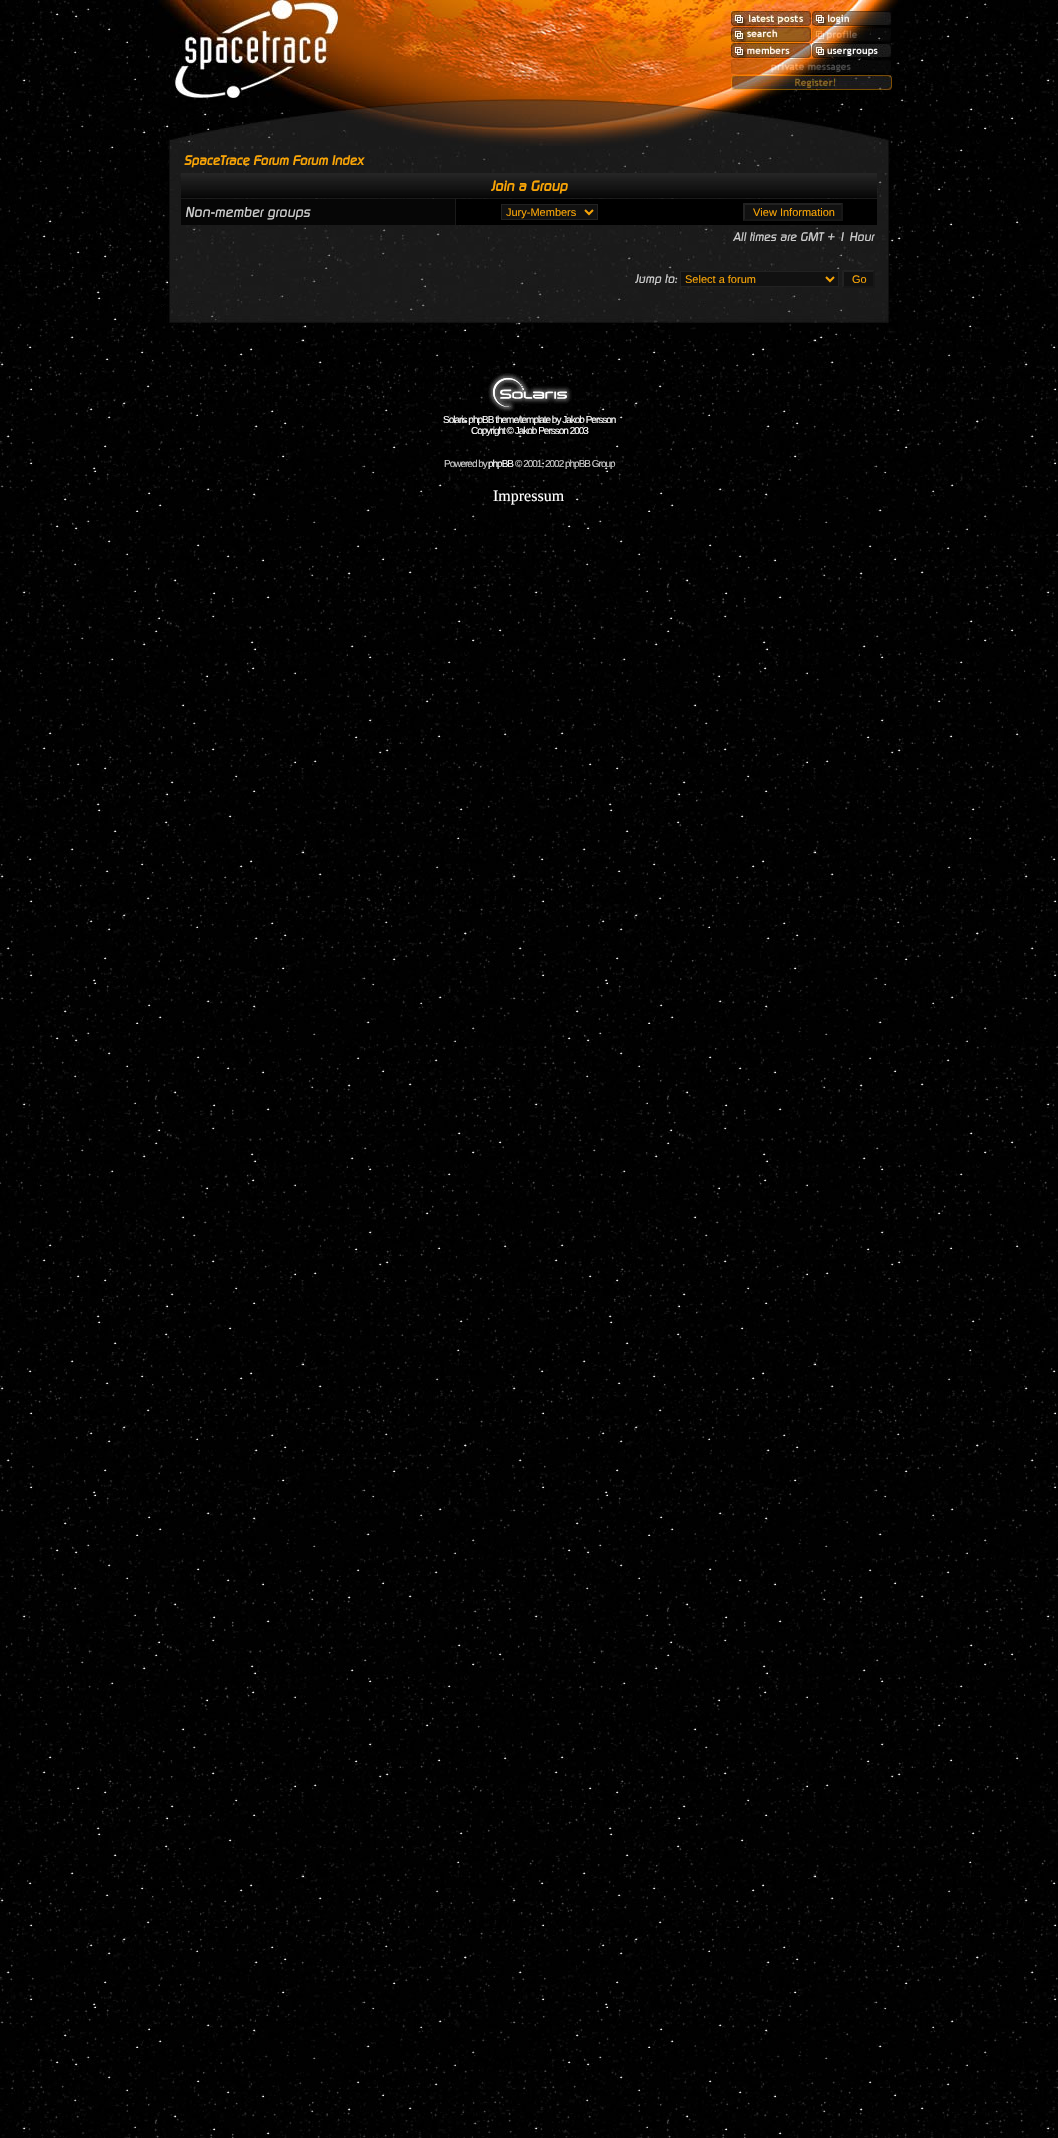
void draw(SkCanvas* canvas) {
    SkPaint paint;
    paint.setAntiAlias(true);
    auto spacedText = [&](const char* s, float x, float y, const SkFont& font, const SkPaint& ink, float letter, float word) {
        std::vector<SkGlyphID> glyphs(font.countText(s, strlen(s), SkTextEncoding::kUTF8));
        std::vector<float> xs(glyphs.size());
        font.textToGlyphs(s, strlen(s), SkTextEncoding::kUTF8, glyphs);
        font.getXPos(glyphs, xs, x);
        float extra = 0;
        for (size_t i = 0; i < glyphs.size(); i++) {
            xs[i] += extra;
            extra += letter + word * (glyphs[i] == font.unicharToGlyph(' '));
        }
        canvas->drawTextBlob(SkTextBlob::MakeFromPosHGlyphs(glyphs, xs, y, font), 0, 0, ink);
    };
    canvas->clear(0xFFFFFFFF);
    canvas->drawImageRect(SkImages::DeferredFromEncodedData(SkData::MakeFromFileName("img1.png")), SkRect::MakeXYWH(0, 0, 1058, 2138), SkSamplingOptions());
    canvas->drawImageRect(SkImages::DeferredFromEncodedData(SkData::MakeFromFileName("img2.png")), SkRect::MakeXYWH(154, 0, 750, 150), SkSamplingOptions());
    canvas->drawImageRect(SkImages::DeferredFromEncodedData(SkData::MakeFromFileName("img3.png")), SkRect::MakeXYWH(154, 0, 184, 98), SkSamplingOptions());
    canvas->drawImageRect(SkImages::DeferredFromEncodedData(SkData::MakeFromFileName("img4.png")), SkRect::MakeXYWH(731, 11, 80, 15), SkSamplingOptions());
    canvas->drawImageRect(SkImages::DeferredFromEncodedData(SkData::MakeFromFileName("img5.png")), SkRect::MakeXYWH(812, 11, 80, 15), SkSamplingOptions());
    canvas->drawImageRect(SkImages::DeferredFromEncodedData(SkData::MakeFromFileName("img6.png")), SkRect::MakeXYWH(731, 27, 80, 15), SkSamplingOptions());
    canvas->drawImageRect(SkImages::DeferredFromEncodedData(SkData::MakeFromFileName("img7.png")), SkRect::MakeXYWH(812, 27, 79, 15), SkSamplingOptions());
    canvas->drawImageRect(SkImages::DeferredFromEncodedData(SkData::MakeFromFileName("img8.png")), SkRect::MakeXYWH(731, 43, 80, 15), SkSamplingOptions());
    canvas->drawImageRect(SkImages::DeferredFromEncodedData(SkData::MakeFromFileName("img9.png")), SkRect::MakeXYWH(812, 43, 80, 15), SkSamplingOptions());
    canvas->drawImageRect(SkImages::DeferredFromEncodedData(SkData::MakeFromFileName("img10.png")), SkRect::MakeXYWH(731, 59, 160, 15), SkSamplingOptions());
    canvas->drawImageRect(SkImages::DeferredFromEncodedData(SkData::MakeFromFileName("img11.png")), SkRect::MakeXYWH(731, 75, 161, 15), SkSamplingOptions());
    canvas->drawImageRect(SkImages::DeferredFromEncodedData(SkData::MakeFromFileName("img12.png")), SkRect::MakeXYWH(154, 98, 750, 51), SkSamplingOptions());
    canvas->drawImageRect(SkImages::DeferredFromEncodedData(SkData::MakeFromFileName("img13.png")), SkRect::MakeXYWH(170, 149, 718, 158), SkSamplingOptions());
    paint.setColor(0xFF0F0F0F);
    canvas->drawRect(SkRect::MakeXYWH(888, 149, 1, 158), paint);
    canvas->drawRect(SkRect::MakeXYWH(169, 149, 1, 158), paint);
    SkFont font1(fontMgr->matchFamilyStyle("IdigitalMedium", SkFontStyle::Bold()), 13);
    font1.setSubpixel(true);
    paint.setColor(0xFFF8A406);
    canvas->drawString("SpaceTrace Forum Forum Index", 184, 165, font1, paint);
    canvas->drawImageRect(SkImages::DeferredFromEncodedData(SkData::MakeFromFileName("img14.png")), SkRect::MakeXYWH(181, 173, 696, 25), SkSamplingOptions());
    SkFont font2(fontMgr->matchFamilyStyle("IdigitalMedium", SkFontStyle::Bold()), 14);
    font2.setSubpixel(true);
    canvas->drawString("Join a Group", 491, 191, font2, paint);
    paint.setColor(0xFF060606);
    canvas->drawRect(SkRect::MakeXYWH(181, 199, 274, 26), paint);
    SkFont font3(fontMgr->matchFamilyStyle("IdigitalMedium", SkFontStyle(500, SkFontStyle::kNormal_Width, SkFontStyle::kUpright_Slant)), 14);
    font3.setSubpixel(true);
    paint.setColor(0xFFCCCCCC);
    canvas->drawString("Non-member groups", 185, 217, font3, paint);
    paint.setColor(0xFF000000);
    canvas->drawRect(SkRect::MakeXYWH(456, 199, 421, 26), paint);
    paint.setColor(0xFF111111);
    canvas->drawRect(SkRect::MakeXYWH(501.5f, 204.5f, 96, 15), paint);
    paint.setStyle(SkPaint::kStroke_Style);
    paint.setStrokeWidth(1);
    paint.setColor(0xFF222222);
    canvas->drawRect(SkRect::MakeXYWH(501.5f, 204.5f, 96, 15), paint);
    paint.setStrokeWidth(2);
    paint.setColor(0xFFF8A406);
    canvas->drawPath(SkPathBuilder().moveTo(585, 210).lineTo(589, 214).lineTo(593, 210).detach(), paint);
    SkFont font4(fontMgr->matchFamilyStyle("Liberation Sans", SkFontStyle::Normal()), 11);
    font4.setSubpixel(true);
    paint.setStyle(SkPaint::kFill_Style);
    canvas->drawString("Jury-Members", 506, 216, font4, paint);
    paint.setColor(0xFF111111);
    canvas->drawRect(SkRect::MakeXYWH(743, 203, 100, 18), paint);
    paint.setColor(0xFF222222);
    canvas->drawPath(SkPathBuilder().moveTo(743, 203).lineTo(843, 203).lineTo(841, 205).lineTo(745, 205).close().detach(), paint);
    paint.setColor(0xFF171717);
    canvas->drawPath(SkPathBuilder().moveTo(843, 203).lineTo(843, 221).lineTo(841, 219).lineTo(841, 205).close().detach(), paint);
    canvas->drawPath(SkPathBuilder().moveTo(843, 221).lineTo(743, 221).lineTo(745, 219).lineTo(841, 219).close().detach(), paint);
    paint.setColor(0xFF222222);
    canvas->drawPath(SkPathBuilder().moveTo(743, 221).lineTo(743, 203).lineTo(745, 205).lineTo(745, 219).close().detach(), paint);
    paint.setColor(0xFFF8A406);
    canvas->drawString("View Information", 753, 216, font4, paint);
    SkFont font5(fontMgr->matchFamilyStyle("IdigitalMedium", SkFontStyle(500, SkFontStyle::kNormal_Width, SkFontStyle::kUpright_Slant)), 12);
    font5.setSubpixel(true);
    paint.setColor(0xFFCCCCCC);
    canvas->drawString("All times are GMT + 1 Hour", 733, 241, font5, paint);
    canvas->drawString("Jump to:", 635, 283, font5, paint);
    paint.setColor(0xFF111111);
    canvas->drawRect(SkRect::MakeXYWH(680.5f, 271.5f, 158, 15), paint);
    paint.setStyle(SkPaint::kStroke_Style);
    paint.setStrokeWidth(1);
    paint.setColor(0xFF222222);
    canvas->drawRect(SkRect::MakeXYWH(680.5f, 271.5f, 158, 15), paint);
    paint.setStrokeWidth(2);
    paint.setColor(0xFFF8A406);
    canvas->drawPath(SkPathBuilder().moveTo(826, 277).lineTo(830, 281).lineTo(834, 277).detach(), paint);
    paint.setStyle(SkPaint::kFill_Style);
    canvas->drawString("Select a forum", 685, 283, font4, paint);
    paint.setColor(0xFF111111);
    canvas->drawRect(SkRect::MakeXYWH(842, 270, 33, 18), paint);
    paint.setColor(0xFF222222);
    canvas->drawPath(SkPathBuilder().moveTo(842, 270).lineTo(875, 270).lineTo(873, 272).lineTo(844, 272).close().detach(), paint);
    paint.setColor(0xFF171717);
    canvas->drawPath(SkPathBuilder().moveTo(875, 270).lineTo(875, 288).lineTo(873, 286).lineTo(873, 272).close().detach(), paint);
    canvas->drawPath(SkPathBuilder().moveTo(875, 288).lineTo(842, 288).lineTo(844, 286).lineTo(873, 286).close().detach(), paint);
    paint.setColor(0xFF222222);
    canvas->drawPath(SkPathBuilder().moveTo(842, 288).lineTo(842, 270).lineTo(844, 272).lineTo(844, 286).close().detach(), paint);
    paint.setColor(0xFFF8A406);
    canvas->drawString("Go", 852, 283, font4, paint);
    canvas->drawImageRect(SkImages::DeferredFromEncodedData(SkData::MakeFromFileName("img15.png")), SkRect::MakeXYWH(155, 307, 749, 32), SkSamplingOptions());
    canvas->drawImageRect(SkImages::DeferredFromEncodedData(SkData::MakeFromFileName("img16.png")), SkRect::MakeXYWH(488, 373, 84, 39), SkSamplingOptions());
    SkFont font6(fontMgr->matchFamilyStyle("Liberation Sans", SkFontStyle::Normal()), 10);
    font6.setSubpixel(true);
    paint.setColor(0xFFFFFFFF);
    spacedText("Solaris phpBB theme/template by Jakob Persson", 443, 423, font6, paint, -1, 0);
    spacedText("Copyright © Jakob Persson 2003", 471, 434, font6, paint, -1, 0);
    paint.setColor(0xFFCCCCCC);
    spacedText("Powered by", 444, 467, font6, paint, -1, 0);
    paint.setColor(0xFFFFFFFF);
    spacedText("phpBB", 488, 467, font6, paint, -1, 0);
    paint.setColor(0xFFCCCCCC);
    spacedText("© 2001, 2002 phpBB Group", 515, 467, font6, paint, -1, 0);
    SkFont font7(fontMgr->matchFamilyStyle("Liberation Serif", SkFontStyle::Normal()), 16);
    font7.setSubpixel(true);
    paint.setColor(0xFFFFFFFF);
    canvas->drawString("Impressum", 493, 501, font7, paint);
}
